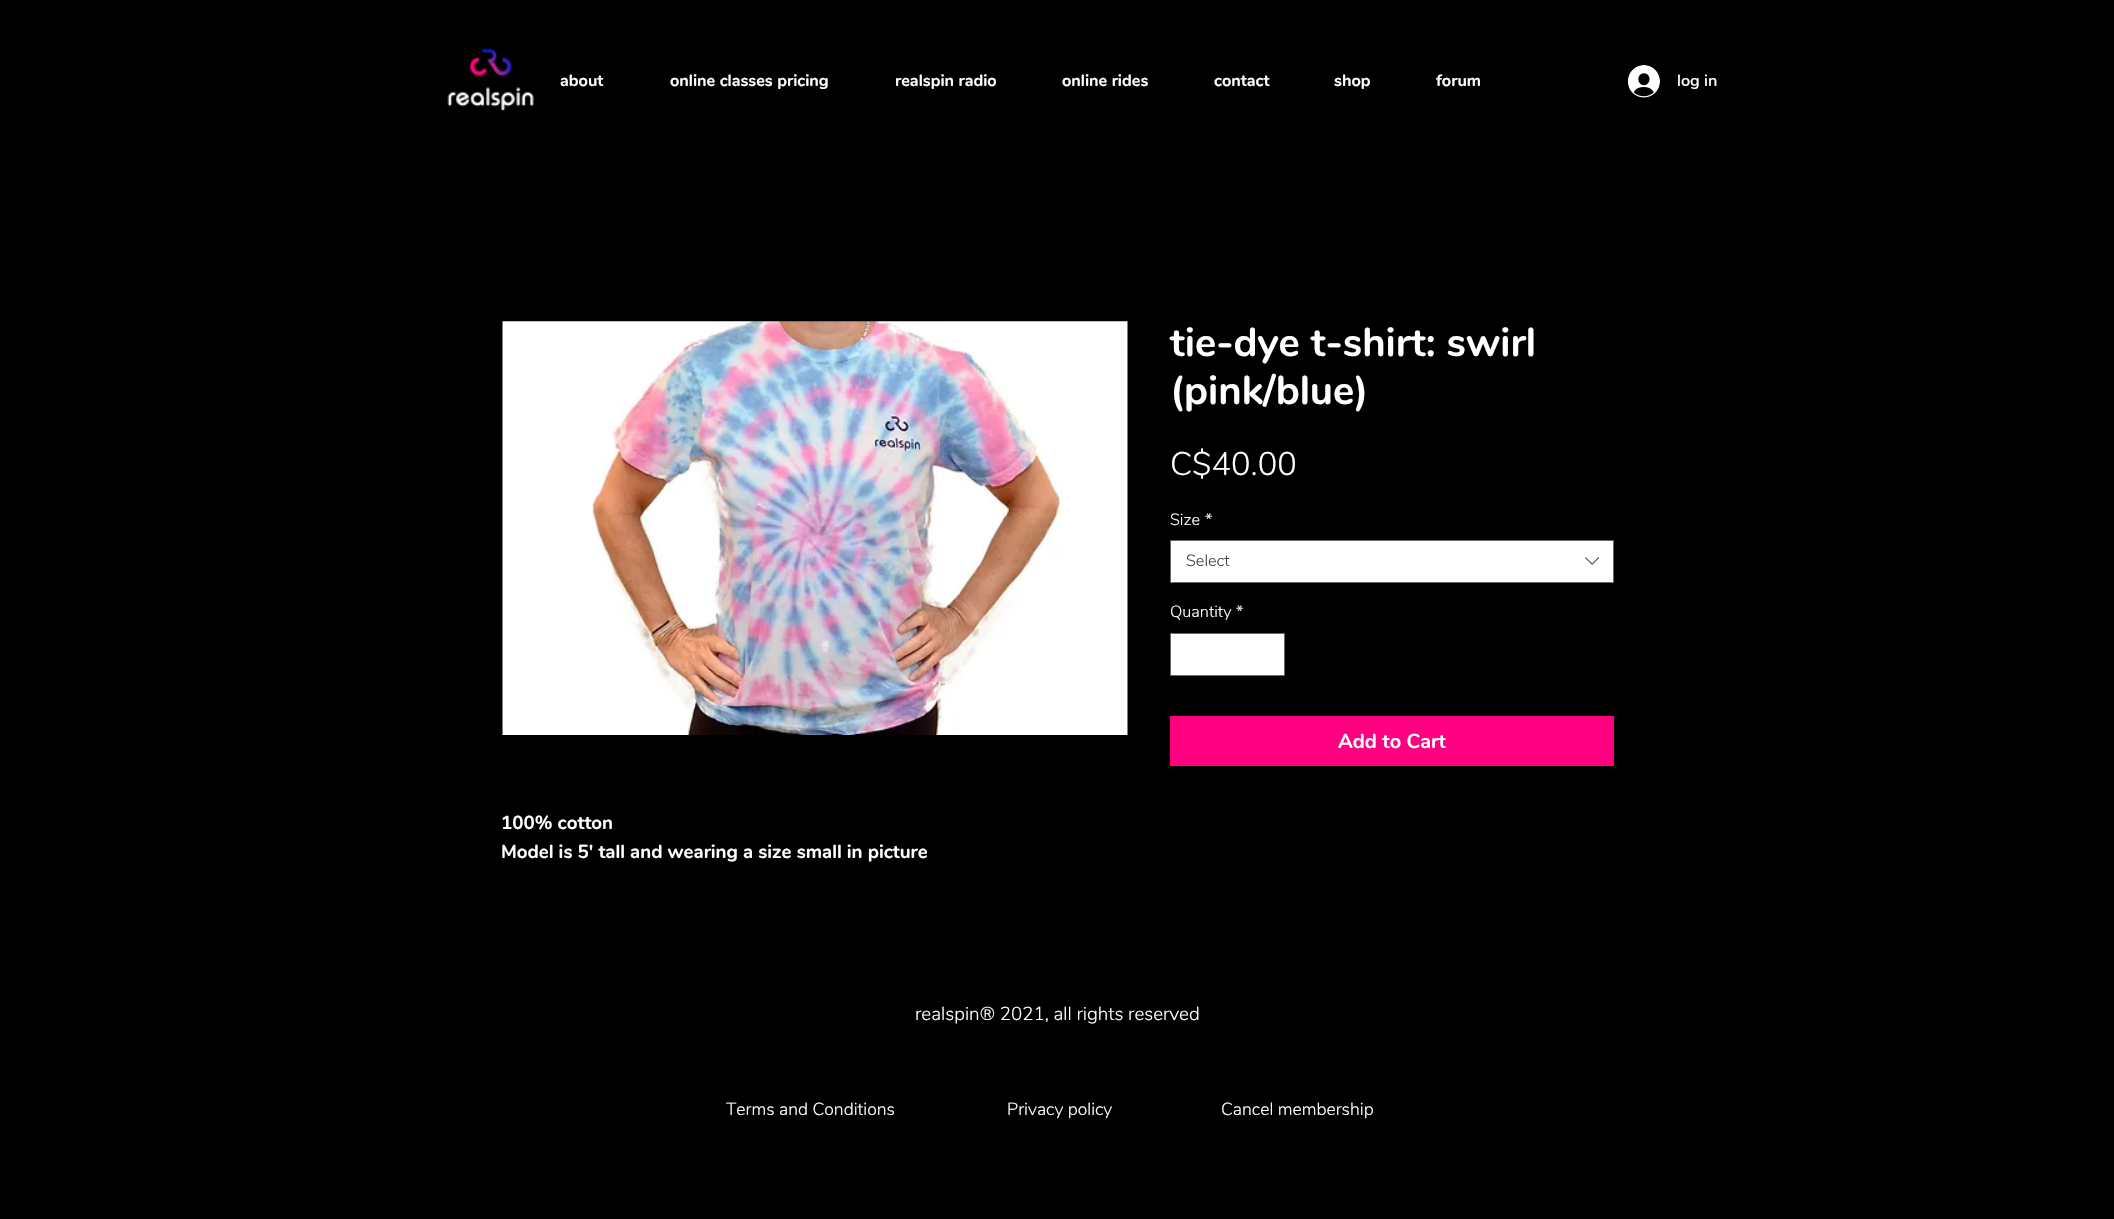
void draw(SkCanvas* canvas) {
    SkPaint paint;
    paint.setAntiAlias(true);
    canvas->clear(0xFF000000);
    canvas->drawImageRect(SkImages::DeferredFromEncodedData(SkData::MakeFromFileName("img1.png")), SkRect::MakeXYWH(447, 48, 87, 63), SkSamplingOptions());
    SkFont font1(fontMgr->matchFamilyStyle("Nunito", SkFontStyle::Bold()), 16.25f);
    font1.setSubpixel(true);
    paint.setColor(0xFFFFFFFF);
    canvas->drawString("about", 560, 86, font1, paint);
    canvas->drawString("online classes pricing", 670, 86, font1, paint);
    canvas->drawString("realspin radio", 895, 86, font1, paint);
    canvas->drawString("online rides", 1062, 86, font1, paint);
    canvas->drawString("contact", 1214, 86, font1, paint);
    canvas->drawString("shop", 1334, 86, font1, paint);
    canvas->drawString("forum", 1436, 86, font1, paint);
    canvas->drawImageRect(SkImages::DeferredFromEncodedData(SkData::MakeFromFileName("img2.png")), SkRect::MakeXYWH(1628, 65, 32, 33), SkSamplingOptions());
    SkFont font2(fontMgr->matchFamilyStyle("Nunito", SkFontStyle(600, SkFontStyle::kNormal_Width, SkFontStyle::kUpright_Slant)), 16.25f);
    font2.setSubpixel(true);
    canvas->drawString("log in", 1677, 86, font2, paint);
    SkFont font3(fontMgr->matchFamilyStyle("Nunito", SkFontStyle::Bold()), 40);
    font3.setSubpixel(true);
    canvas->drawString("tie-dye t-shirt: swirl", 1170, 356, font3, paint);
    canvas->drawString("(pink/blue)", 1170, 404, font3, paint);
    SkFont font4(fontMgr->matchFamilyStyle("Nunito", SkFontStyle(300, SkFontStyle::kNormal_Width, SkFontStyle::kUpright_Slant)), 32.5f);
    font4.setSubpixel(true);
    canvas->drawString("C$40.00", 1170, 475, font4, paint);
    SkFont font5(fontMgr->matchFamilyStyle("Nunito", SkFontStyle(300, SkFontStyle::kNormal_Width, SkFontStyle::kUpright_Slant)), 16.25f);
    font5.setSubpixel(true);
    canvas->drawString("Size", 1170, 525, font5, paint);
    canvas->drawString("*", 1205, 525, font5, paint);
    canvas->drawRect(SkRect::MakeXYWH(1170.5f, 540.5f, 443, 42), paint);
    paint.setStyle(SkPaint::kStroke_Style);
    paint.setStrokeWidth(1);
    paint.setColor(0xFF666666);
    canvas->drawRect(SkRect::MakeXYWH(1170.5f, 540.5f, 443, 42), paint);
    paint.setStyle(SkPaint::kFill_Style);
    paint.setColor(0xFF444444);
    canvas->drawString("Select", 1186, 566, font5, paint);
    canvas->drawImageRect(SkImages::DeferredFromEncodedData(SkData::MakeFromFileName("img3.png")), SkRect::MakeXYWH(1585, 557, 15, 8), SkSamplingOptions());
    paint.setColor(0xFFFFFFFF);
    canvas->drawString("Quantity", 1170, 617, font5, paint);
    canvas->drawString("*", 1236, 617, font5, paint);
    canvas->drawRect(SkRect::MakeXYWH(1170.5f, 633.5f, 114, 42), paint);
    paint.setStyle(SkPaint::kStroke_Style);
    paint.setColor(0xFF666666);
    canvas->drawRect(SkRect::MakeXYWH(1170.5f, 633.5f, 114, 42), paint);
    paint.setStyle(SkPaint::kFill_Style);
    paint.setColor(0xFFFF0081);
    canvas->drawRect(SkRect::MakeXYWH(1170, 716, 444, 50), paint);
    SkFont font6(fontMgr->matchFamilyStyle("Nunito", SkFontStyle::Bold()), 20);
    font6.setSubpixel(true);
    paint.setColor(0xFFFFFFFF);
    canvas->drawString("Add to Cart", 1338, 748, font6, paint);
    canvas->drawImageRect(SkImages::DeferredFromEncodedData(SkData::MakeFromFileName("img4.png")), SkRect::MakeXYWH(502, 321, 626, 414), SkSamplingOptions());
    SkFont font7(fontMgr->matchFamilyStyle("Nunito", SkFontStyle::Bold()), 18.75f);
    font7.setSubpixel(true);
    canvas->drawString("100% cotton", 501, 829, font7, paint);
    canvas->drawString("Model is 5' tall and wearing a size small in picture", 501, 858, font7, paint);
    SkFont font8(fontMgr->matchFamilyStyle("Nunito", SkFontStyle(300, SkFontStyle::kNormal_Width, SkFontStyle::kUpright_Slant)), 18.75f);
    font8.setSubpixel(true);
    canvas->drawString("realspin® 2021, all rights reserved", 915, 1020, font8, paint);
    SkFont font9(fontMgr->matchFamilyStyle("Nunito", SkFontStyle(300, SkFontStyle::kNormal_Width, SkFontStyle::kUpright_Slant)), 17.5f);
    font9.setSubpixel(true);
    canvas->drawString("Terms and Conditions", 726, 1115, font9, paint);
    canvas->drawString("Privacy policy", 1007, 1115, font9, paint);
    canvas->drawString("Cancel membership", 1221, 1115, font9, paint);
}
